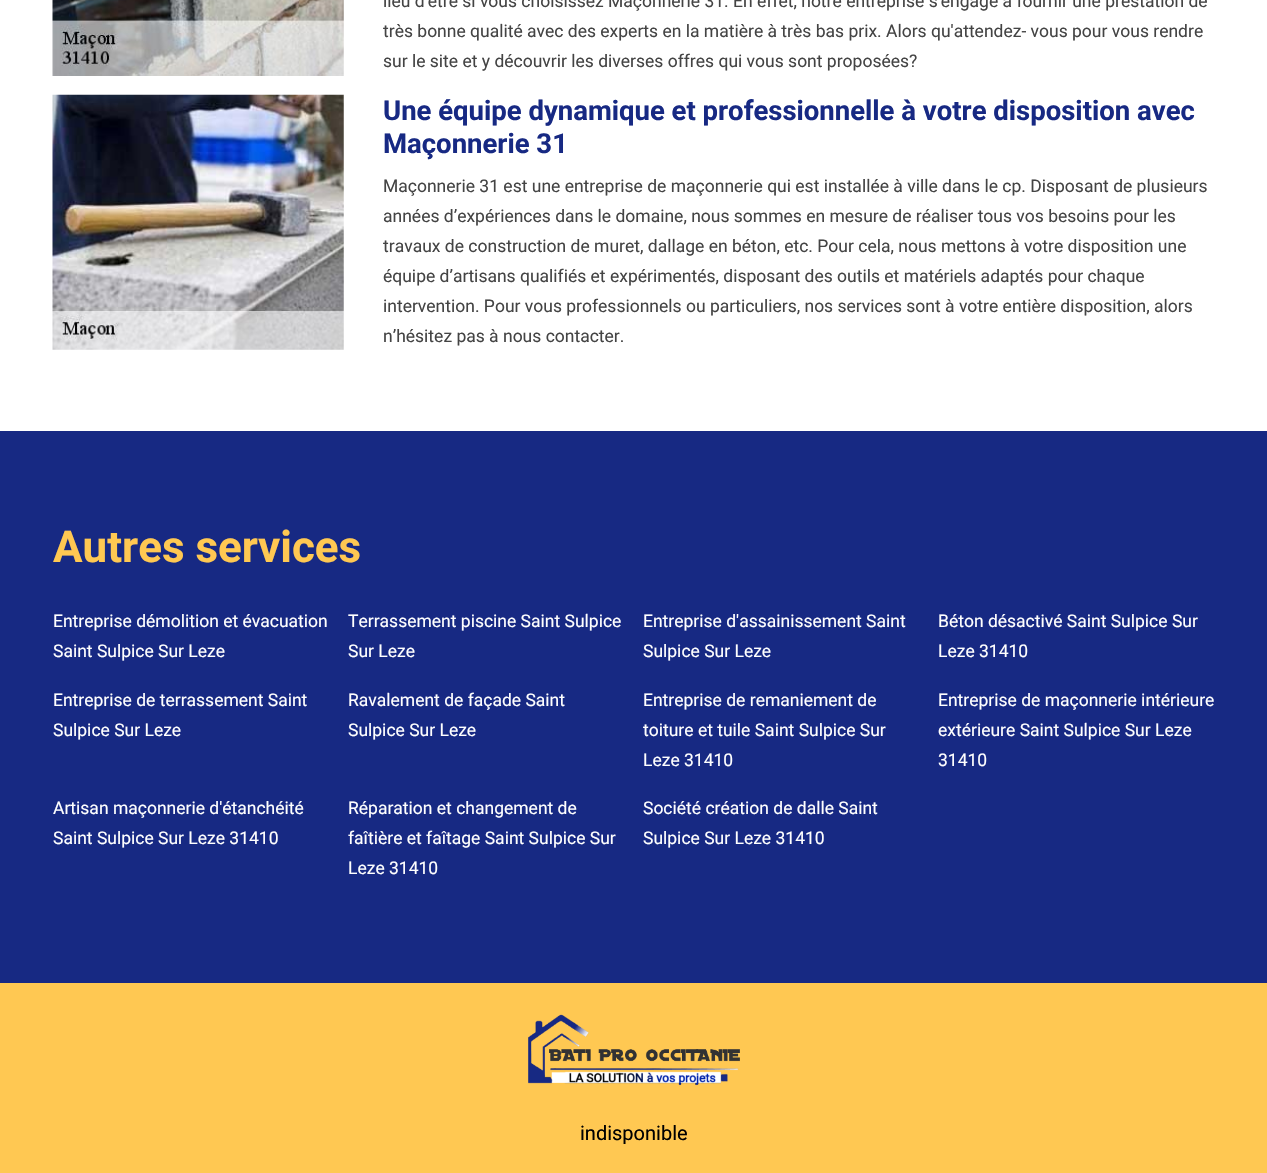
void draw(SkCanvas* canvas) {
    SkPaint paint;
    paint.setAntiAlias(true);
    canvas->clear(0xFFFFFFFF);
    canvas->drawImageRect(SkImages::DeferredFromEncodedData(SkData::MakeFromFileName("img1.png")), SkRect::MakeXYWH(52, 0, 292, 76), SkSamplingOptions());
    SkFont font1(fontMgr->matchFamilyStyle("Roboto", SkFontStyle::Normal()), 17.5f);
    font1.setSubpixel(true);
    paint.setColor(0xFF444444);
    canvas->drawString("lieu d'être si vous choisissez Maçonnerie 31. En effet, notre entreprise s'engage à fournir une prestation de", 383, 7, font1, paint);
    canvas->drawString("très bonne qualité avec des experts en la matière à très bas prix. Alors qu'attendez- vous pour vous rendre", 383, 37, font1, paint);
    canvas->drawString("sur le site et y découvrir les diverses offres qui vous sont proposées?", 383, 67, font1, paint);
    canvas->drawImageRect(SkImages::DeferredFromEncodedData(SkData::MakeFromFileName("img2.png")), SkRect::MakeXYWH(52, 94, 292, 256), SkSamplingOptions());
    SkFont font2(fontMgr->matchFamilyStyle("Roboto", SkFontStyle::Bold()), 27.5f);
    font2.setSubpixel(true);
    paint.setColor(0xFF172983);
    canvas->drawString("Une équipe dynamique et professionnelle à votre disposition avec", 383, 120, font2, paint);
    canvas->drawString("Maçonnerie 31", 383, 153, font2, paint);
    paint.setColor(0xFF444444);
    canvas->drawString("Maçonnerie 31 est une entreprise de maçonnerie qui est installée à ville dans le cp. Disposant de plusieurs", 383, 192, font1, paint);
    canvas->drawString("années d’expériences dans le domaine, nous sommes en mesure de réaliser tous vos besoins pour les", 383, 222, font1, paint);
    canvas->drawString("travaux de construction de muret, dallage en béton, etc. Pour cela, nous mettons à votre disposition une", 383, 252, font1, paint);
    canvas->drawString("équipe d’artisans qualifiés et expérimentés, disposant des outils et matériels adaptés pour chaque", 383, 282, font1, paint);
    canvas->drawString("intervention. Pour vous professionnels ou particuliers, nos services sont à votre entière disposition, alors", 383, 312, font1, paint);
    canvas->drawString("n’hésitez pas à nous contacter.", 383, 342, font1, paint);
    paint.setColor(0xFF172983);
    canvas->drawRect(SkRect::MakeXYWH(0, 431, 1267, 552), paint);
    SkFont font3(fontMgr->matchFamilyStyle("Roboto", SkFontStyle::Bold()), 44);
    font3.setSubpixel(true);
    paint.setColor(0xFFFFC852);
    canvas->drawString("Autres services", 53, 562, font3, paint);
    paint.setColor(0xFFFFFFFF);
    canvas->drawString("Entreprise démolition et évacuation", 53, 627, font1, paint);
    canvas->drawString("Saint Sulpice Sur Leze", 53, 657, font1, paint);
    canvas->drawString("Terrassement piscine Saint Sulpice", 348, 627, font1, paint);
    canvas->drawString("Sur Leze", 348, 657, font1, paint);
    canvas->drawString("Entreprise d'assainissement Saint", 643, 627, font1, paint);
    canvas->drawString("Sulpice Sur Leze", 643, 657, font1, paint);
    canvas->drawString("Béton désactivé Saint Sulpice Sur", 938, 627, font1, paint);
    canvas->drawString("Leze 31410", 938, 657, font1, paint);
    canvas->drawString("Entreprise de terrassement Saint", 53, 706, font1, paint);
    canvas->drawString("Sulpice Sur Leze", 53, 736, font1, paint);
    canvas->drawString("Ravalement de façade Saint", 348, 706, font1, paint);
    canvas->drawString("Sulpice Sur Leze", 348, 736, font1, paint);
    canvas->drawString("Entreprise de remaniement de", 643, 706, font1, paint);
    canvas->drawString("toiture et tuile Saint Sulpice Sur", 643, 736, font1, paint);
    canvas->drawString("Leze 31410", 643, 766, font1, paint);
    canvas->drawString("Entreprise de maçonnerie intérieure", 938, 706, font1, paint);
    canvas->drawString("extérieure Saint Sulpice Sur Leze", 938, 736, font1, paint);
    canvas->drawString("31410", 938, 766, font1, paint);
    canvas->drawString("Artisan maçonnerie d'étanchéité", 53, 814, font1, paint);
    canvas->drawString("Saint Sulpice Sur Leze 31410", 53, 844, font1, paint);
    canvas->drawString("Réparation et changement de", 348, 814, font1, paint);
    canvas->drawString("faîtière et faîtage Saint Sulpice Sur", 348, 844, font1, paint);
    canvas->drawString("Leze 31410", 348, 874, font1, paint);
    canvas->drawString("Société création de dalle Saint", 643, 814, font1, paint);
    canvas->drawString("Sulpice Sur Leze 31410", 643, 844, font1, paint);
    paint.setColor(0xFFFFC852);
    canvas->drawRect(SkRect::MakeXYWH(0, 983, 1267, 190), paint);
    canvas->drawImageRect(SkImages::DeferredFromEncodedData(SkData::MakeFromFileName("img3.png")), SkRect::MakeXYWH(528, 1014, 212, 72), SkSamplingOptions());
    SkFont font4(fontMgr->matchFamilyStyle("Roboto", SkFontStyle::Normal()), 20);
    font4.setSubpixel(true);
    paint.setColor(0xFF000000);
    canvas->drawString("indisponible", 580, 1140, font4, paint);
}
